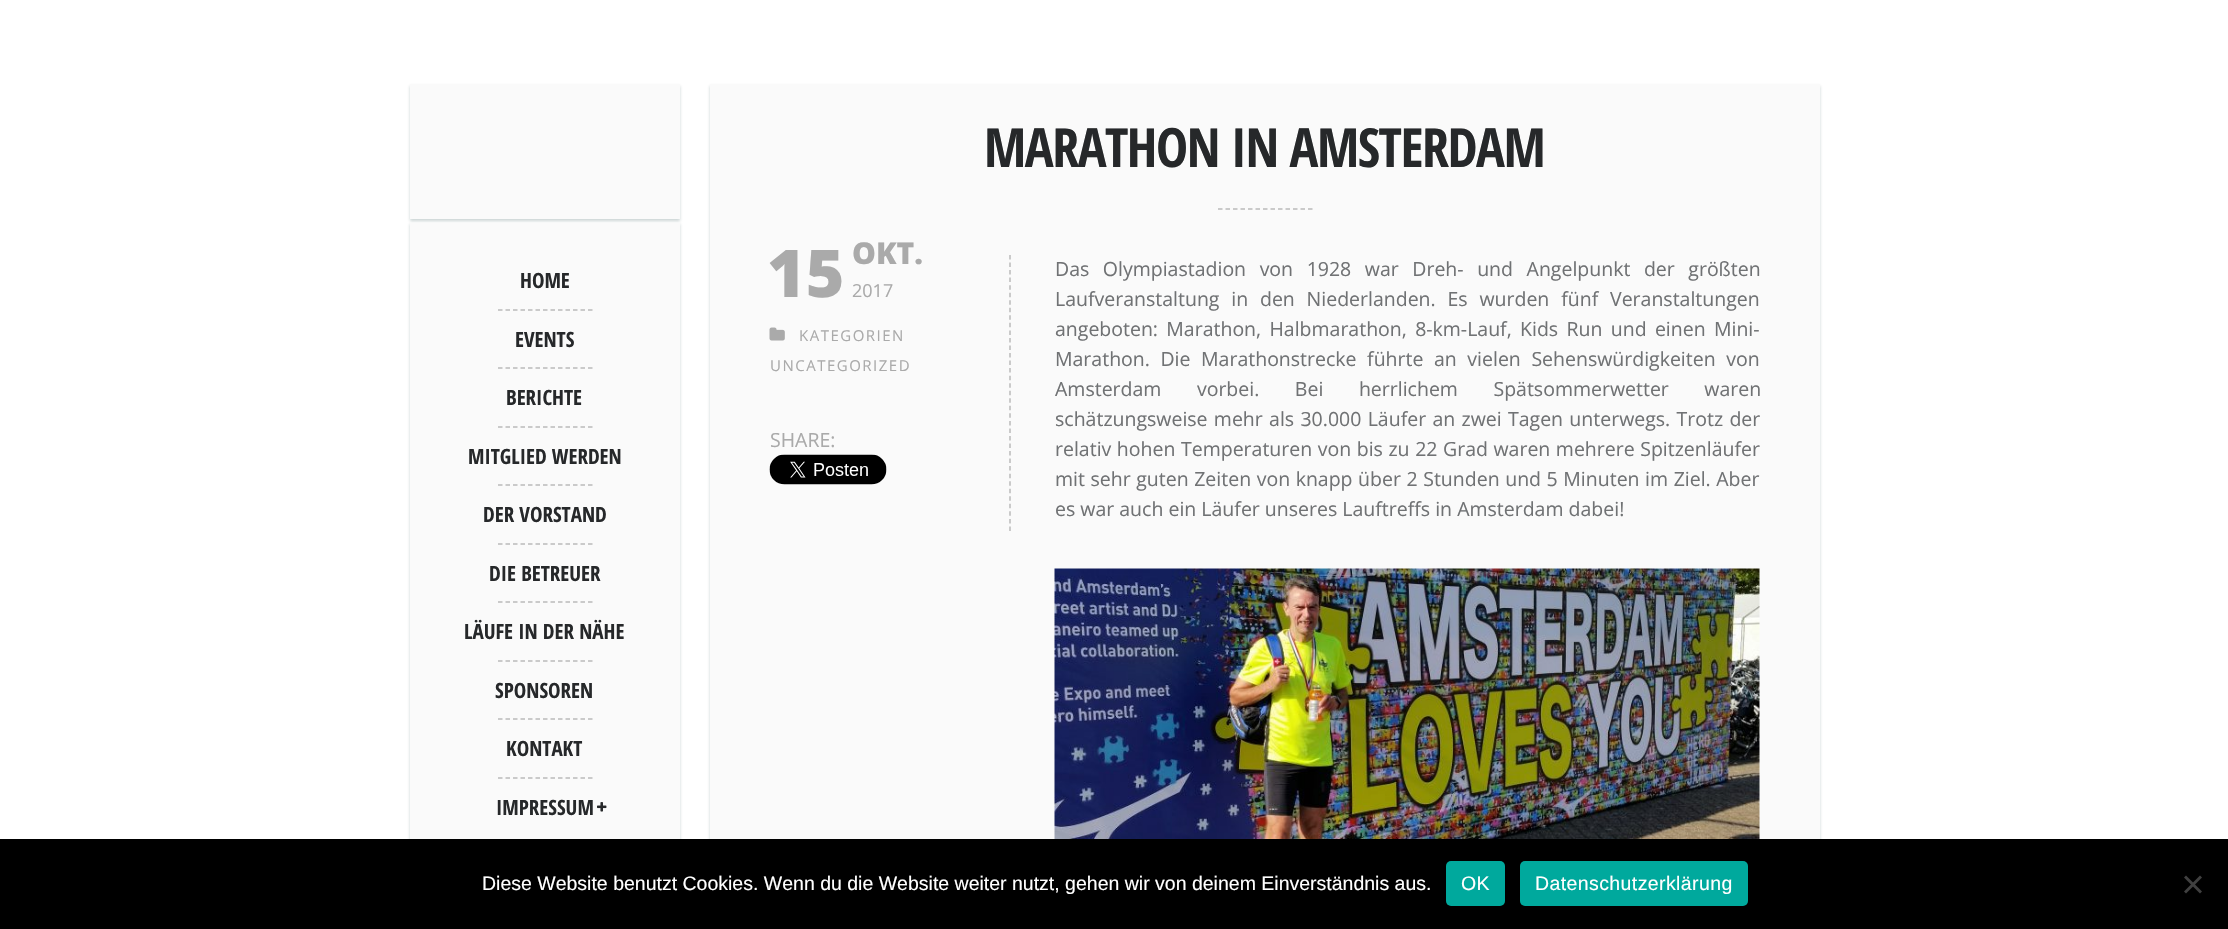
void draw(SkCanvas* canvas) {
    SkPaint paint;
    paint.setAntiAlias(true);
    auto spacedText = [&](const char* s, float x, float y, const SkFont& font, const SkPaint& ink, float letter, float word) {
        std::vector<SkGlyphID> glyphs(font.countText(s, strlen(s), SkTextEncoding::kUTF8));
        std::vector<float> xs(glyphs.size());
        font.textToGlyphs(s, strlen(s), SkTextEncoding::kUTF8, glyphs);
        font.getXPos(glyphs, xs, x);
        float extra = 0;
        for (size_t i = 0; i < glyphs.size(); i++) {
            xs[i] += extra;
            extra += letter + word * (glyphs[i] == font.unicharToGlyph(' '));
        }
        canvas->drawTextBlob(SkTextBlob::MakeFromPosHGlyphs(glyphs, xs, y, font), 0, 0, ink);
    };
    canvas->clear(0xFFFFFFFF);
    canvas->save();
    canvas->clipPath(SkPathBuilder(SkPathFillType::kEvenOdd).moveTo(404, 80).lineTo(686, 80).lineTo(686, 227).lineTo(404, 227).close().moveTo(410, 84).lineTo(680, 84).lineTo(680, 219).lineTo(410, 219).close().detach(), true);
    paint.setColor(0x3B1E4646);
    paint.setMaskFilter(SkMaskFilter::MakeBlur(kNormal_SkBlurStyle, 1.5f));
    canvas->drawRect(SkRect::MakeXYWH(410, 86, 270, 135), paint);
    paint.setMaskFilter(nullptr);
    canvas->restore();
    paint.setColor(0xE6F9F9F9);
    canvas->drawRect(SkRect::MakeXYWH(410, 84, 270, 135), paint);
    canvas->save();
    canvas->clipPath(SkPathBuilder(SkPathFillType::kEvenOdd).moveTo(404, 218).lineTo(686, 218).lineTo(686, 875).lineTo(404, 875).close().moveTo(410, 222).lineTo(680, 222).lineTo(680, 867).lineTo(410, 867).close().detach(), true);
    paint.setColor(0x3B1E4646);
    paint.setMaskFilter(SkMaskFilter::MakeBlur(kNormal_SkBlurStyle, 1.5f));
    canvas->drawRect(SkRect::MakeXYWH(410, 224, 270, 645), paint);
    paint.setMaskFilter(nullptr);
    canvas->restore();
    paint.setColor(0xE6F9F9F9);
    canvas->drawRect(SkRect::MakeXYWH(410, 223, 270, 616), paint);
    SkFont font1(fontMgr->matchFamilyStyle("Open Sans Condensed", SkFontStyle::Bold()), 21);
    font1.setSubpixel(true);
    paint.setColor(0xFF26282A);
    canvas->drawString("HOME", 520, 288, font1, paint);
    paint.setStyle(SkPaint::kStroke_Style);
    paint.setStrokeWidth(1.5f);
    paint.setColor(0xFFBBBBBB);
    paint.setPathEffect(SkDashPathEffect::Make({{4.5f, 3}}, 0));
    canvas->drawPath(SkPathBuilder().moveTo(498, 310).lineTo(592.5f, 310).detach(), paint);
    paint.setPathEffect(nullptr);
    paint.setStyle(SkPaint::kFill_Style);
    paint.setColor(0xFF26282A);
    canvas->drawString("EVENTS", 515, 347, font1, paint);
    paint.setStyle(SkPaint::kStroke_Style);
    paint.setColor(0xFFBBBBBB);
    paint.setPathEffect(SkDashPathEffect::Make({{4.5f, 3}}, 0));
    canvas->drawPath(SkPathBuilder().moveTo(498, 368).lineTo(592.5f, 368).detach(), paint);
    paint.setPathEffect(nullptr);
    paint.setStyle(SkPaint::kFill_Style);
    paint.setColor(0xFF26282A);
    canvas->drawString("BERICHTE", 506, 405, font1, paint);
    paint.setStyle(SkPaint::kStroke_Style);
    paint.setColor(0xFFBBBBBB);
    paint.setPathEffect(SkDashPathEffect::Make({{4.5f, 3}}, 0));
    canvas->drawPath(SkPathBuilder().moveTo(498, 427).lineTo(592.5f, 427).detach(), paint);
    paint.setPathEffect(nullptr);
    paint.setStyle(SkPaint::kFill_Style);
    paint.setColor(0xFF26282A);
    canvas->drawString("MITGLIED WERDEN", 468, 464, font1, paint);
    paint.setStyle(SkPaint::kStroke_Style);
    paint.setColor(0xFFBBBBBB);
    paint.setPathEffect(SkDashPathEffect::Make({{4.5f, 3}}, 0));
    canvas->drawPath(SkPathBuilder().moveTo(498, 485).lineTo(592.5f, 485).detach(), paint);
    paint.setPathEffect(nullptr);
    paint.setStyle(SkPaint::kFill_Style);
    paint.setColor(0xFF26282A);
    canvas->drawString("DER VORSTAND", 483, 522, font1, paint);
    paint.setStyle(SkPaint::kStroke_Style);
    paint.setColor(0xFFBBBBBB);
    paint.setPathEffect(SkDashPathEffect::Make({{4.5f, 3}}, 0));
    canvas->drawPath(SkPathBuilder().moveTo(498, 544).lineTo(592.5f, 544).detach(), paint);
    paint.setPathEffect(nullptr);
    paint.setStyle(SkPaint::kFill_Style);
    paint.setColor(0xFF26282A);
    canvas->drawString("DIE BETREUER", 489, 581, font1, paint);
    paint.setStyle(SkPaint::kStroke_Style);
    paint.setColor(0xFFBBBBBB);
    paint.setPathEffect(SkDashPathEffect::Make({{4.5f, 3}}, 0));
    canvas->drawPath(SkPathBuilder().moveTo(498, 602).lineTo(592.5f, 602).detach(), paint);
    paint.setPathEffect(nullptr);
    paint.setStyle(SkPaint::kFill_Style);
    paint.setColor(0xFF26282A);
    canvas->drawString("LÄUFE IN DER NÄHE", 464, 639, font1, paint);
    paint.setStyle(SkPaint::kStroke_Style);
    paint.setColor(0xFFBBBBBB);
    paint.setPathEffect(SkDashPathEffect::Make({{4.5f, 3}}, 0));
    canvas->drawPath(SkPathBuilder().moveTo(498, 661).lineTo(592.5f, 661).detach(), paint);
    paint.setPathEffect(nullptr);
    paint.setStyle(SkPaint::kFill_Style);
    paint.setColor(0xFF26282A);
    canvas->drawString("SPONSOREN", 495, 698, font1, paint);
    paint.setStyle(SkPaint::kStroke_Style);
    paint.setColor(0xFFBBBBBB);
    paint.setPathEffect(SkDashPathEffect::Make({{4.5f, 3}}, 0));
    canvas->drawPath(SkPathBuilder().moveTo(498, 719).lineTo(592.5f, 719).detach(), paint);
    paint.setPathEffect(nullptr);
    paint.setStyle(SkPaint::kFill_Style);
    paint.setColor(0xFF26282A);
    canvas->drawString("KONTAKT", 506, 756, font1, paint);
    paint.setStyle(SkPaint::kStroke_Style);
    paint.setColor(0xFFBBBBBB);
    paint.setPathEffect(SkDashPathEffect::Make({{4.5f, 3}}, 0));
    canvas->drawPath(SkPathBuilder().moveTo(498, 778).lineTo(592.5f, 778).detach(), paint);
    paint.setPathEffect(nullptr);
    paint.setStyle(SkPaint::kFill_Style);
    paint.setColor(0xFF26282A);
    canvas->drawString("IMPRESSUM", 496, 815, font1, paint);
    canvas->drawImageRect(SkImages::DeferredFromEncodedData(SkData::MakeFromFileName("img1.png")), SkRect::MakeXYWH(597, 802, 10, 10), SkSamplingOptions());
    canvas->save();
    canvas->clipPath(SkPathBuilder(SkPathFillType::kEvenOdd).moveTo(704, 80).lineTo(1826, 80).lineTo(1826, 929).lineTo(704, 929).close().moveTo(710, 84).lineTo(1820, 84).lineTo(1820, 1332).lineTo(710, 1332).close().detach(), true);
    paint.setColor(0x3B1E4646);
    paint.setMaskFilter(SkMaskFilter::MakeBlur(kNormal_SkBlurStyle, 1.5f));
    canvas->drawRect(SkRect::MakeXYWH(710, 86, 1110, 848), paint);
    paint.setMaskFilter(nullptr);
    canvas->restore();
    paint.setColor(0xE6F9F9F9);
    canvas->drawRect(SkRect::MakeXYWH(710, 84, 1110, 755), paint);
    SkFont font2(fontMgr->matchFamilyStyle("Open Sans Condensed", SkFontStyle::Bold()), 54);
    font2.setSubpixel(true);
    paint.setColor(0xFF26282A);
    spacedText("MARATHON IN AMSTERDAM", 984, 167, font2, paint, -1.5f, 0);
    paint.setStyle(SkPaint::kStroke_Style);
    paint.setColor(0xFFBBBBBB);
    paint.setPathEffect(SkDashPathEffect::Make({{4.5f, 3}}, 0));
    canvas->drawPath(SkPathBuilder().moveTo(1218, 209).lineTo(1312.5f, 209).detach(), paint);
    paint.setPathEffect(nullptr);
    paint.setPathEffect(SkDashPathEffect::Make({{4.5f, 3.04f}}, 0));
    canvas->drawPath(SkPathBuilder().moveTo(1010, 255).lineTo(1010, 531).detach(), paint);
    paint.setPathEffect(nullptr);
    SkFont font3(fontMgr->matchFamilyStyle("Open Sans", SkFontStyle(800, SkFontStyle::kNormal_Width, SkFontStyle::kUpright_Slant)), 66);
    font3.setSubpixel(true);
    paint.setStyle(SkPaint::kFill_Style);
    paint.setColor(0xFFAAAAAA);
    canvas->drawString("15", 767, 297, font3, paint);
    SkFont font4(fontMgr->matchFamilyStyle("Open Sans", SkFontStyle(800, SkFontStyle::kNormal_Width, SkFontStyle::kUpright_Slant)), 30);
    font4.setSubpixel(true);
    canvas->drawString("OKT.", 852, 264, font4, paint);
    SkFont font5(fontMgr->matchFamilyStyle("Open Sans", SkFontStyle::Normal()), 18);
    font5.setSubpixel(true);
    canvas->drawString("2017", 852, 297, font5, paint);
    canvas->drawImageRect(SkImages::DeferredFromEncodedData(SkData::MakeFromFileName("img2.png")), SkRect::MakeXYWH(769, 327, 16, 14), SkSamplingOptions());
    SkFont font6(fontMgr->matchFamilyStyle("Open Sans", SkFontStyle::Normal()), 15);
    font6.setSubpixel(true);
    spacedText("KATEGORIEN", 799, 341, font6, paint, 1.5f, 0);
    spacedText("UNCATEGORIZED", 770, 371, font6, paint, 1.5f, 0);
    SkFont font7(fontMgr->matchFamilyStyle("Open Sans", SkFontStyle::Normal()), 19.5f);
    font7.setSubpixel(true);
    canvas->drawString("SHARE:", 770, 447, font7, paint);
    canvas->drawImageRect(SkImages::DeferredFromEncodedData(SkData::MakeFromFileName("img3.png")), SkRect::MakeXYWH(769, 454, 118, 31), SkSamplingOptions());
    paint.setColor(0xFF707274);
    spacedText("Das Olympiastadion von 1928 war Dreh- und Angelpunkt der größten", 1055, 276, font7, paint, 0, 8.5f);
    spacedText("Laufveranstaltung in den Niederlanden. Es wurden fünf Veranstaltungen", 1055, 306, font7, paint, 0, 6.75f);
    spacedText("angeboten: Marathon, Halbmarathon, 8-km-Lauf, Kids Run und einen Mini-", 1055, 336, font7, paint, 0, 3.25f);
    spacedText("Marathon. Die Marathonstrecke führte an vielen Sehenswürdigkeiten von", 1055, 366, font7, paint, 0, 5.5f);
    spacedText("Amsterdam vorbei. Bei herrlichem Spätsommerwetter waren", 1055, 396, font7, paint, 0, 30.5f);
    spacedText("schätzungsweise mehr als 30.000 Läufer an zwei Tagen unterwegs. Trotz der", 1055, 426, font7, paint, 0, 1.25f);
    spacedText("relativ hohen Temperaturen von bis zu 22 Grad waren mehrere Spitzenläufer", 1055, 456, font7, paint, 0, 0.5f);
    spacedText("mit sehr guten Zeiten von knapp über 2 Stunden und 5 Minuten im Ziel. Aber", 1055, 486, font7, paint, 0, 0.5f);
    canvas->drawString("es war auch ein Läufer unseres Lauftreffs in Amsterdam dabei!", 1055, 516, font7, paint);
    canvas->drawImageRect(SkImages::DeferredFromEncodedData(SkData::MakeFromFileName("img4.png")), SkRect::MakeXYWH(1054, 568, 706, 271), SkSamplingOptions());
    paint.setColor(0xFF000000);
    canvas->drawRect(SkRect::MakeXYWH(0, 839, 2228, 90), paint);
    SkFont font8(fontMgr->matchFamilyStyle("Liberation Sans", SkFontStyle::Normal()), 19.5f);
    font8.setSubpixel(true);
    paint.setColor(0xFFFFFFFF);
    canvas->drawString("Diese Website benutzt Cookies. Wenn du die Website weiter nutzt, gehen wir von deinem Einverständnis aus.", 482, 890, font8, paint);
    paint.setColor(0xFF00A99D);
    canvas->drawRoundRect(SkRect::MakeXYWH(1446, 861, 59, 45), 5, 5, paint);
    paint.setColor(0xFFFFFFFF);
    spacedText("OK", 1461, 890, font8, paint, 0.4f, 0);
    paint.setColor(0xFF00A99D);
    canvas->drawRoundRect(SkRect::MakeXYWH(1520, 861, 228, 45), 5, 5, paint);
    paint.setColor(0xFFFFFFFF);
    spacedText("Datenschutzerklärung", 1535, 890, font8, paint, 0.4f, 0);
    paint.setColor(0xFF404040);
    canvas->drawPath(SkPathBuilder().moveTo(2200, 875.5f).lineTo(2202, 877.5f).lineTo(2186, 893.5f).lineTo(2184, 891.5f).close().detach(), paint);
    canvas->drawPath(SkPathBuilder().moveTo(2184, 877.5f).lineTo(2186, 875.5f).lineTo(2202, 891.5f).lineTo(2200, 893.5f).close().detach(), paint);
}
